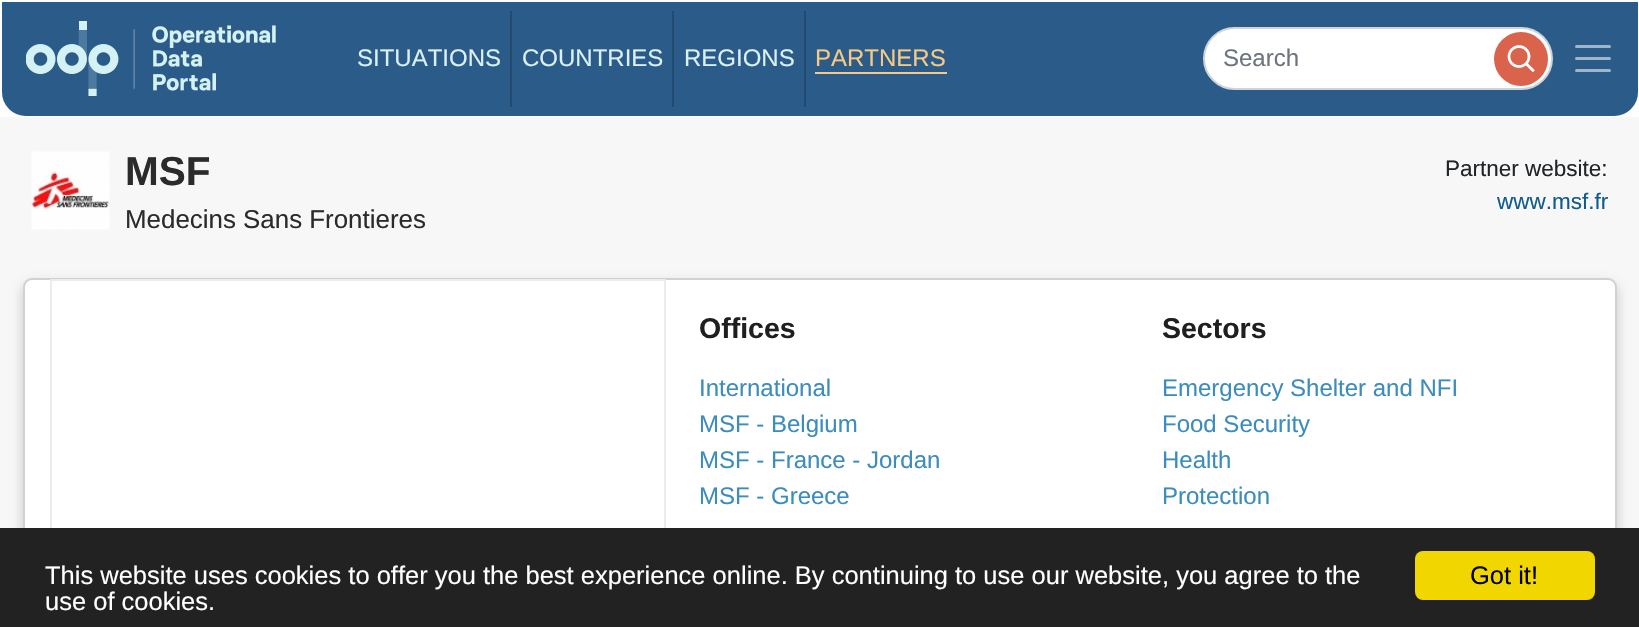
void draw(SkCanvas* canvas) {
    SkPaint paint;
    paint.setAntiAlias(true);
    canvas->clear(0xFFFFFFFF);
    paint.setColor(0xFF2A5B89);
    canvas->drawPath(SkPathBuilder().moveTo(4.5f, 4.5f).lineTo(1635.5f, 4.5f).lineTo(1635.5f, 92).cubicTo(1635.5f, 104, 1626, 113.5f, 1614, 113.5f).lineTo(26, 113.5f).cubicTo(14, 113.5f, 4.5f, 104, 4.5f, 92).close().detach(), paint);
    paint.setStyle(SkPaint::kStroke_Style);
    paint.setStrokeWidth(5);
    canvas->drawPath(SkPathBuilder().moveTo(4.5f, 4.5f).lineTo(1635.5f, 4.5f).lineTo(1635.5f, 92).cubicTo(1635.5f, 104, 1626, 113.5f, 1614, 113.5f).lineTo(26, 113.5f).cubicTo(14, 113.5f, 4.5f, 104, 4.5f, 92).close().detach(), paint);
    canvas->drawImageRect(SkImages::DeferredFromEncodedData(SkData::MakeFromFileName("img1.png")), SkRect::MakeXYWH(26, 21, 250, 75), SkSamplingOptions());
    SkFont font1(fontMgr->matchFamilyStyle("Liberation Sans", SkFontStyle::Normal()), 24);
    font1.setSubpixel(true);
    paint.setStyle(SkPaint::kFill_Style);
    paint.setColor(0xFFDAF0F3);
    canvas->drawString("SITUATIONS", 357, 66, font1, paint);
    paint.setColor(0xFF22496E);
    canvas->drawRect(SkRect::MakeXYWH(510, 11, 2, 96), paint);
    paint.setColor(0xFFDAF0F3);
    canvas->drawString("COUNTRIES", 522, 66, font1, paint);
    paint.setColor(0xFF22496E);
    canvas->drawRect(SkRect::MakeXYWH(672, 11, 2, 96), paint);
    paint.setColor(0xFFDAF0F3);
    canvas->drawString("REGIONS", 684, 66, font1, paint);
    paint.setColor(0xFF22496E);
    canvas->drawRect(SkRect::MakeXYWH(804, 11, 2, 96), paint);
    paint.setColor(0xFFF7C983);
    canvas->drawString("PARTNERS", 815, 66, font1, paint);
    canvas->drawRect(SkRect::MakeXYWH(815, 72, 132, 2), paint);
    paint.setColor(0xFFFFFFFF);
    canvas->drawRoundRect(SkRect::MakeXYWH(1204, 28, 348, 61), 30.5f, 30.5f, paint);
    paint.setStyle(SkPaint::kStroke_Style);
    paint.setStrokeWidth(2);
    paint.setColor(0xFFCED4DA);
    canvas->drawRoundRect(SkRect::MakeXYWH(1204, 28, 348, 61), 30.5f, 30.5f, paint);
    paint.setStyle(SkPaint::kFill_Style);
    paint.setColor(0xFF6C757D);
    canvas->drawString("Search", 1223, 66, font1, paint);
    paint.setColor(0xFFDA634B);
    canvas->drawCircle(1521, 59, 27, paint);
    canvas->drawImageRect(SkImages::DeferredFromEncodedData(SkData::MakeFromFileName("img2.png")), SkRect::MakeXYWH(1507, 45, 28, 28), SkSamplingOptions());
    paint.setStyle(SkPaint::kStroke_Style);
    paint.setStrokeWidth(3);
    paint.setStrokeCap(SkPaint::kRound_Cap);
    paint.setColor(0xFF9FB5CA);
    canvas->drawPath(SkPathBuilder().moveTo(1576.5f, 46.5f).lineTo(1609.5f, 46.5f).moveTo(1576.5f, 58.5f).lineTo(1609.5f, 58.5f).moveTo(1576.5f, 70.5f).lineTo(1609.5f, 70.5f).detach(), paint);
    paint.setStyle(SkPaint::kFill_Style);
    paint.setColor(0xFFF7F7F7);
    canvas->drawRect(SkRect::MakeXYWH(0, 117, 1639, 411), paint);
    canvas->drawImageRect(SkImages::DeferredFromEncodedData(SkData::MakeFromFileName("img3.png")), SkRect::MakeXYWH(31, 151, 79, 79), SkSamplingOptions());
    SkFont font2(fontMgr->matchFamilyStyle("Liberation Sans", SkFontStyle::Bold()), 40.5f);
    font2.setSubpixel(true);
    paint.setColor(0xFF2B2B2B);
    canvas->drawString("MSF", 125, 185, font2, paint);
    SkFont font3(fontMgr->matchFamilyStyle("Liberation Sans", SkFontStyle::Normal()), 25.9f);
    font3.setSubpixel(true);
    canvas->drawString("Medecins Sans Frontieres", 125, 228, font3, paint);
    SkFont font4(fontMgr->matchFamilyStyle("Liberation Sans", SkFontStyle::Normal()), 22.5f);
    font4.setSubpixel(true);
    paint.setColor(0xFF212529);
    canvas->drawString("Partner website:", 1445, 176, font4, paint);
    paint.setColor(0xFF105C8D);
    canvas->drawString("www.msf.fr", 1497, 209, font4, paint);
    paint.setColor(0x33000000);
    paint.setMaskFilter(SkMaskFilter::MakeBlur(kNormal_SkBlurStyle, 6));
    canvas->drawRoundRect(SkRect::MakeXYWH(23, 284, 1594, 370), 9, 9, paint);
    paint.setMaskFilter(nullptr);
    paint.setColor(0xFFFFFFFF);
    canvas->drawRoundRect(SkRect::MakeXYWH(23, 278, 1594, 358), 9, 9, paint);
    paint.setStyle(SkPaint::kStroke_Style);
    paint.setStrokeWidth(2);
    paint.setStrokeCap(SkPaint::kButt_Cap);
    paint.setColor(0x2E000000);
    canvas->drawRoundRect(SkRect::MakeXYWH(24, 279, 1592, 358), 8, 8, paint);
    paint.setColor(0xFFECECEC);
    canvas->drawRect(SkRect::MakeXYWH(51, 280, 614, 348), paint);
    SkFont font5(fontMgr->matchFamilyStyle("Liberation Sans", SkFontStyle::Bold()), 28.5f);
    font5.setSubpixel(true);
    paint.setStyle(SkPaint::kFill_Style);
    paint.setColor(0xFF1F1F1F);
    canvas->drawString("Offices", 699, 338, font5, paint);
    paint.setColor(0xFF3C8DBC);
    canvas->drawString("International", 699, 396, font1, paint);
    canvas->drawString("MSF - Belgium", 699, 432, font1, paint);
    canvas->drawString("MSF - France - Jordan", 699, 468, font1, paint);
    canvas->drawString("MSF - Greece", 699, 504, font1, paint);
    paint.setColor(0xFF1F1F1F);
    canvas->drawString("Sectors", 1162, 338, font5, paint);
    paint.setColor(0xFF3C8DBC);
    canvas->drawString("Emergency Shelter and NFI", 1162, 396, font1, paint);
    canvas->drawString("Food Security", 1162, 432, font1, paint);
    canvas->drawString("Health", 1162, 468, font1, paint);
    canvas->drawString("Protection", 1162, 504, font1, paint);
    paint.setColor(0xFF222222);
    canvas->drawRect(SkRect::MakeXYWH(0, 528, 1639, 99), paint);
    SkFont font6(fontMgr->matchFamilyStyle("Liberation Sans", SkFontStyle::Normal()), 25.5f);
    font6.setSubpixel(true);
    paint.setColor(0xFFFFFFFF);
    canvas->drawString("This website uses cookies to offer you the best experience online. By continuing to use our website, you agree to the", 45, 584, font6, paint);
    canvas->drawString("use of cookies.", 45, 610, font6, paint);
    paint.setColor(0xFFF1D600);
    canvas->drawRoundRect(SkRect::MakeXYWH(1415, 551, 180, 49), 8, 8, paint);
    paint.setColor(0xFF000000);
    canvas->drawString("Got it!", 1470, 584, font6, paint);
}
